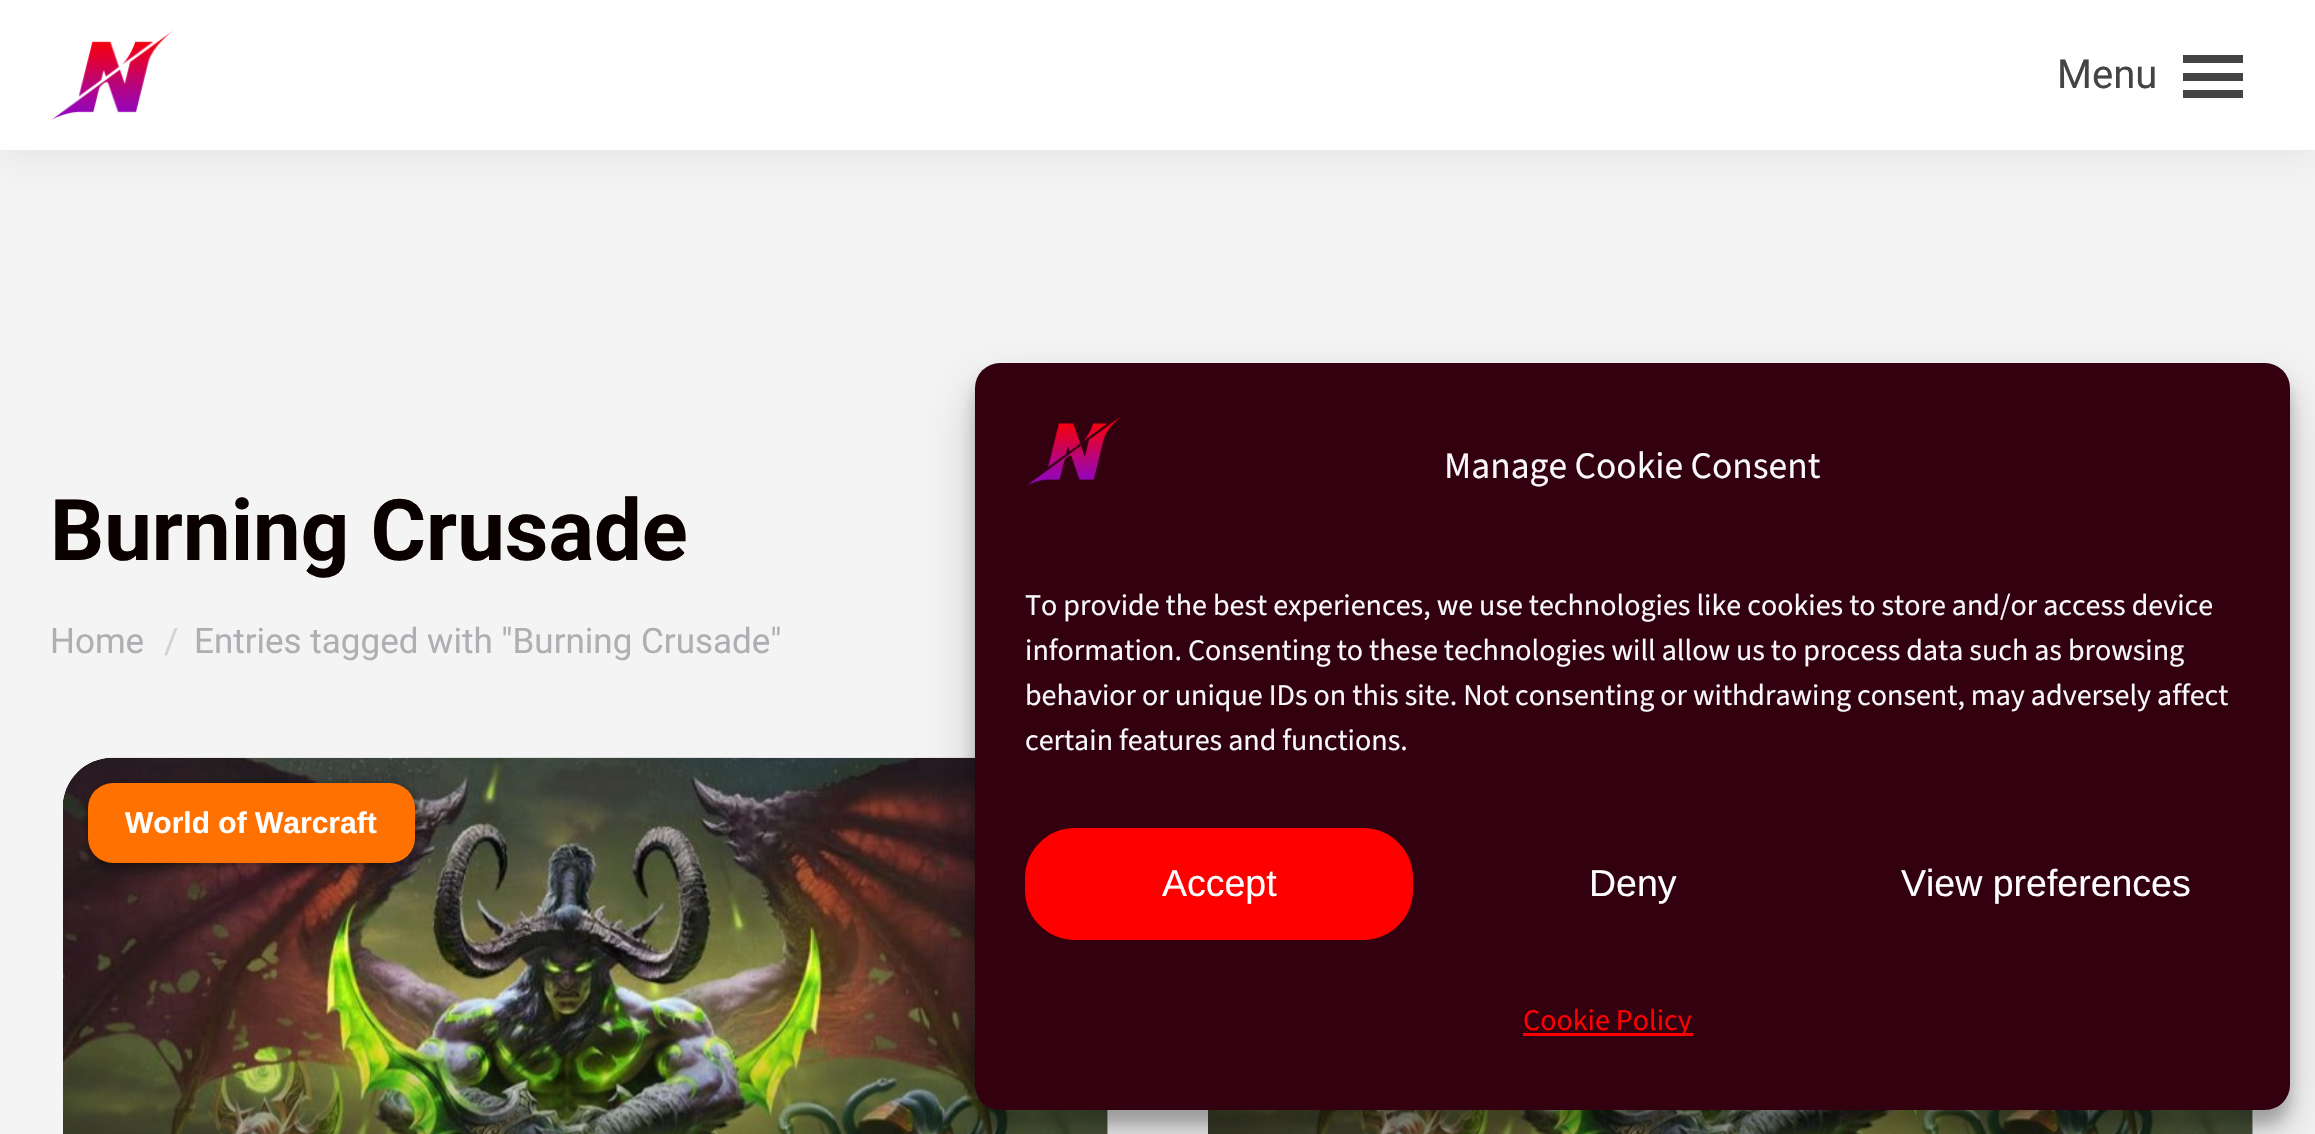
void draw(SkCanvas* canvas) {
    SkPaint paint;
    paint.setAntiAlias(true);
    canvas->clear(0xFFF4F4F4);
    paint.setColor(0x12000000);
    paint.setMaskFilter(SkMaskFilter::MakeBlur(kNormal_SkBlurStyle, 19));
    canvas->drawRect(SkRect::MakeXYWH(-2, -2, 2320, 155), paint);
    paint.setMaskFilter(nullptr);
    paint.setColor(0xFFFFFFFF);
    canvas->drawRect(SkRect::MakeXYWH(0, 0, 2315, 150), paint);
    canvas->drawImageRect(SkImages::DeferredFromEncodedData(SkData::MakeFromFileName("img1.png")), SkRect::MakeXYWH(52, 30, 121, 90), SkSamplingOptions());
    SkFont font1(fontMgr->matchFamilyStyle("Roboto", SkFontStyle::Normal()), 40);
    font1.setSubpixel(true);
    paint.setColor(0xFF444444);
    canvas->drawString("Menu", 2057, 88, font1, paint);
    canvas->drawRect(SkRect::MakeXYWH(2183, 55, 60, 8), paint);
    canvas->drawRect(SkRect::MakeXYWH(2183, 73, 60, 8), paint);
    canvas->drawRect(SkRect::MakeXYWH(2183, 90, 60, 8), paint);
    SkFont font2(fontMgr->matchFamilyStyle("Roboto", SkFontStyle::Bold()), 85);
    font2.setSubpixel(true);
    paint.setColor(0xFF0A0000);
    canvas->drawString("Burning Crusade", 50, 560, font2, paint);
    SkFont font3(fontMgr->matchFamilyStyle("Roboto", SkFontStyle::Normal()), 35);
    font3.setSubpixel(true);
    paint.setColor(0xFFADAFB3);
    canvas->drawString("Home", 50, 653, font3, paint);
    paint.setColor(0xFFD1D2D4);
    canvas->drawString("/", 164, 653, font3, paint);
    paint.setColor(0xFFADAFB3);
    canvas->drawString("Entries tagged with \"Burning Crusade\"", 194, 653, font3, paint);
    canvas->drawImageRect(SkImages::DeferredFromEncodedData(SkData::MakeFromFileName("img2.png")), SkRect::MakeXYWH(63, 757, 1045, 377), SkSamplingOptions());
    paint.setColor(0x36000000);
    paint.setMaskFilter(SkMaskFilter::MakeBlur(kNormal_SkBlurStyle, 3.5f));
    canvas->drawRoundRect(SkRect::MakeXYWH(88, 783, 327, 80), 25, 25, paint);
    paint.setMaskFilter(nullptr);
    paint.setColor(0x40000000);
    paint.setMaskFilter(SkMaskFilter::MakeBlur(kNormal_SkBlurStyle, 4.5f));
    canvas->drawRoundRect(SkRect::MakeXYWH(88, 788, 327, 80), 25, 25, paint);
    paint.setMaskFilter(nullptr);
    paint.setColor(0xFFFF7100);
    canvas->drawRoundRect(SkRect::MakeXYWH(88, 783, 327, 80), 25, 25, paint);
    SkFont font4(fontMgr->matchFamilyStyle("Liberation Sans", SkFontStyle::Bold()), 30);
    font4.setSubpixel(true);
    paint.setColor(0xFFFFFFFF);
    canvas->drawString("World of Warcraft", 125, 833, font4, paint);
    {
        const SkColor colors[] = {0x000A0A0A, 0xE60A0A0A, 0xE60A0A0A};
        const float stops[] = {0, 0.65f, 1};
        const SkPoint ends[] = {{585, 1001}, {585, 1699}};
        paint.setShader(SkGradientShader::MakeLinear(ends, colors, stops, 3, SkTileMode::kClamp));
        paint.setAlpha(255);
    }
    canvas->drawRect(SkRect::MakeXYWH(63, 1012, 1045, 122), paint);
    canvas->drawImageRect(SkImages::DeferredFromEncodedData(SkData::MakeFromFileName("img3.png")), SkRect::MakeXYWH(1208, 1110, 1045, 24), SkSamplingOptions());
    {
        const SkColor colors[] = {0x000A0A0A, 0xE60A0A0A, 0xE60A0A0A};
        const float stops[] = {0, 0.65f, 1};
        const SkPoint ends[] = {{1730, 1001}, {1730, 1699}};
        paint.setShader(SkGradientShader::MakeLinear(ends, colors, stops, 3, SkTileMode::kClamp));
        paint.setAlpha(255);
    }
    canvas->drawRect(SkRect::MakeXYWH(1208, 1110, 1045, 24), paint);
    paint.setShader(nullptr);
    paint.setColor(0x3B000000);
    paint.setMaskFilter(SkMaskFilter::MakeBlur(kNormal_SkBlurStyle, 7.5f));
    canvas->drawRoundRect(SkRect::MakeXYWH(975, 378, 1315, 747), 25, 25, paint);
    paint.setMaskFilter(nullptr);
    paint.setColor(0x30000000);
    paint.setMaskFilter(SkMaskFilter::MakeBlur(kNormal_SkBlurStyle, 25));
    canvas->drawRoundRect(SkRect::MakeXYWH(975, 388, 1315, 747), 25, 25, paint);
    paint.setMaskFilter(nullptr);
    paint.setColor(0xFF330010);
    canvas->drawRoundRect(SkRect::MakeXYWH(975, 363, 1315, 747), 25, 25, paint);
    canvas->drawImageRect(SkImages::DeferredFromEncodedData(SkData::MakeFromFileName("img4.png")), SkRect::MakeXYWH(1026, 414, 98, 72), SkSamplingOptions());
    SkFont font5(fontMgr->matchFamilyStyle("Source Sans 3", SkFontStyle::Normal()), 37.5f);
    font5.setSubpixel(true);
    paint.setColor(0xFFF9F9F9);
    canvas->drawString("Manage Cookie Consent", 1444, 478, font5, paint);
    SkFont font6(fontMgr->matchFamilyStyle("Source Sans 3", SkFontStyle::Normal()), 30);
    font6.setSubpixel(true);
    canvas->drawString("To provide the best experiences, we use technologies like cookies to store and/or access device", 1025, 615, font6, paint);
    canvas->drawString("information. Consenting to these technologies will allow us to process data such as browsing", 1025, 660, font6, paint);
    canvas->drawString("behavior or unique IDs on this site. Not consenting or withdrawing consent, may adversely affect", 1025, 705, font6, paint);
    canvas->drawString("certain features and functions.", 1025, 750, font6, paint);
    paint.setColor(0xFFFF0000);
    canvas->drawRoundRect(SkRect::MakeXYWH(1026.5f, 829.5f, 385, 109), 48.5f, 48.5f, paint);
    paint.setStyle(SkPaint::kStroke_Style);
    paint.setStrokeWidth(3);
    canvas->drawRoundRect(SkRect::MakeXYWH(1026.5f, 829.5f, 385, 109), 48.5f, 48.5f, paint);
    SkFont font7(fontMgr->matchFamilyStyle("Liberation Sans", SkFontStyle::Normal()), 37.5f);
    font7.setSubpixel(true);
    paint.setStyle(SkPaint::kFill_Style);
    paint.setColor(0xFFFFFFFF);
    canvas->drawString("Accept", 1162, 896, font7, paint);
    canvas->drawString("Deny", 1589, 896, font7, paint);
    canvas->drawString("View preferences", 1901, 896, font7, paint);
    paint.setColor(0xFFFF0000);
    canvas->drawRect(SkRect::MakeXYWH(1523, 1033, 170, 3), paint);
    canvas->drawString("Cookie Policy", 1523, 1030, font6, paint);
}
